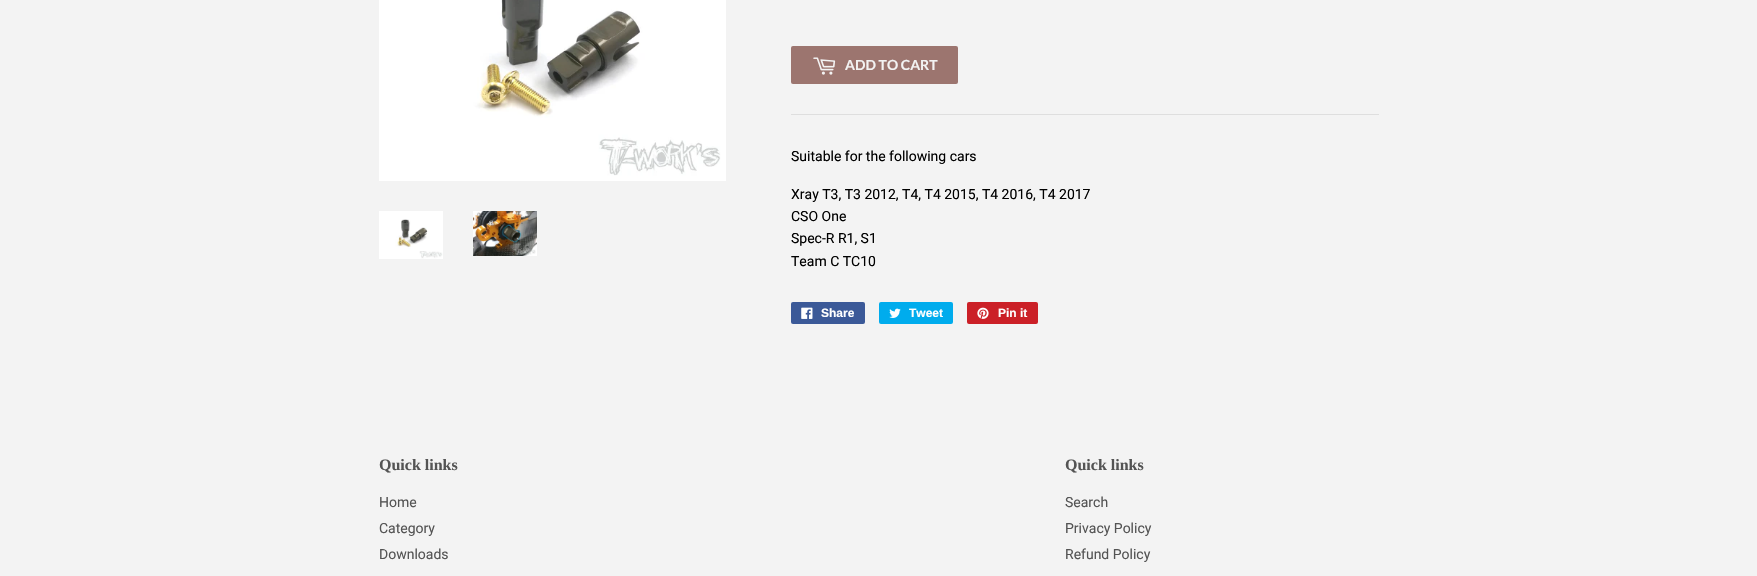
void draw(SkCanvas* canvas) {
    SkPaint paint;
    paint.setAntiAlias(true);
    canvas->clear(0xFFF3F3F3);
    canvas->drawImageRect(SkImages::DeferredFromEncodedData(SkData::MakeFromFileName("img1.png")), SkRect::MakeXYWH(379, 0, 347, 181), SkSamplingOptions());
    canvas->drawImageRect(SkImages::DeferredFromEncodedData(SkData::MakeFromFileName("img2.png")), SkRect::MakeXYWH(379, 211, 64, 48), SkSamplingOptions());
    canvas->drawImageRect(SkImages::DeferredFromEncodedData(SkData::MakeFromFileName("img3.png")), SkRect::MakeXYWH(473, 211, 64, 45), SkSamplingOptions());
    paint.setColor(0xFF9C756F);
    canvas->drawRoundRect(SkRect::MakeXYWH(791, 46, 167, 38), 2, 2, paint);
    canvas->drawImageRect(SkImages::DeferredFromEncodedData(SkData::MakeFromFileName("img4.png")), SkRect::MakeXYWH(813, 57, 23, 18), SkSamplingOptions());
    SkFont font1(fontMgr->matchFamilyStyle("Lato", SkFontStyle::Bold()), 14);
    font1.setSubpixel(true);
    paint.setColor(0xFFF3F3F3);
    canvas->drawString("ADD TO CART", 845, 70, font1, paint);
    paint.setColor(0xFFDEDEDE);
    canvas->drawRect(SkRect::MakeXYWH(791, 114, 588, 1), paint);
    SkFont font2(fontMgr->matchFamilyStyle("Roboto", SkFontStyle::Normal()), 14);
    font2.setSubpixel(true);
    paint.setColor(0xFF000000);
    canvas->drawString("Suitable for the following cars", 791, 161, font2, paint);
    canvas->drawString("Xray T3, T3 2012, T4, T4 2015, T4 2016, T4 2017", 791, 199, font2, paint);
    canvas->drawString("CSO One", 791, 221, font2, paint);
    canvas->drawString("Spec-R R1, S1", 791, 243, font2, paint);
    canvas->drawString("Team C TC10", 791, 266, font2, paint);
    paint.setColor(0xFF3B5998);
    canvas->drawRoundRect(SkRect::MakeXYWH(791, 302, 74, 22), 2, 2, paint);
    canvas->drawImageRect(SkImages::DeferredFromEncodedData(SkData::MakeFromFileName("img5.png")), SkRect::MakeXYWH(801, 307, 12, 12), SkSamplingOptions());
    SkFont font3(fontMgr->matchFamilyStyle("Liberation Sans", SkFontStyle::Bold()), 12);
    font3.setSubpixel(true);
    paint.setColor(0xFFFFFFFF);
    canvas->drawString("Share", 821, 317, font3, paint);
    paint.setColor(0xFF00ACED);
    canvas->drawRoundRect(SkRect::MakeXYWH(879, 302, 74, 22), 2, 2, paint);
    canvas->drawImageRect(SkImages::DeferredFromEncodedData(SkData::MakeFromFileName("img6.png")), SkRect::MakeXYWH(889, 308, 12, 10), SkSamplingOptions());
    paint.setColor(0xFFFFFFFF);
    canvas->drawString("Tweet", 909, 317, font3, paint);
    paint.setColor(0xFFCB2027);
    canvas->drawRoundRect(SkRect::MakeXYWH(967, 302, 71, 22), 2, 2, paint);
    canvas->drawImageRect(SkImages::DeferredFromEncodedData(SkData::MakeFromFileName("img7.png")), SkRect::MakeXYWH(977, 307, 12, 12), SkSamplingOptions());
    paint.setColor(0xFFFFFFFF);
    canvas->drawString("Pin it", 998, 317, font3, paint);
    SkFont font4(fontMgr->matchFamilyStyle("Liberation Serif", SkFontStyle::Bold()), 16);
    font4.setSubpixel(true);
    paint.setColor(0xFF545454);
    canvas->drawString("Quick links", 379, 470, font4, paint);
    canvas->drawString("Home", 379, 507, font2, paint);
    canvas->drawString("Category", 379, 533, font2, paint);
    canvas->drawString("Downloads", 379, 559, font2, paint);
    canvas->drawString("Quick links", 1065, 470, font4, paint);
    canvas->drawString("Search", 1065, 507, font2, paint);
    canvas->drawString("Privacy Policy", 1065, 533, font2, paint);
    canvas->drawString("Refund Policy", 1065, 559, font2, paint);
}
